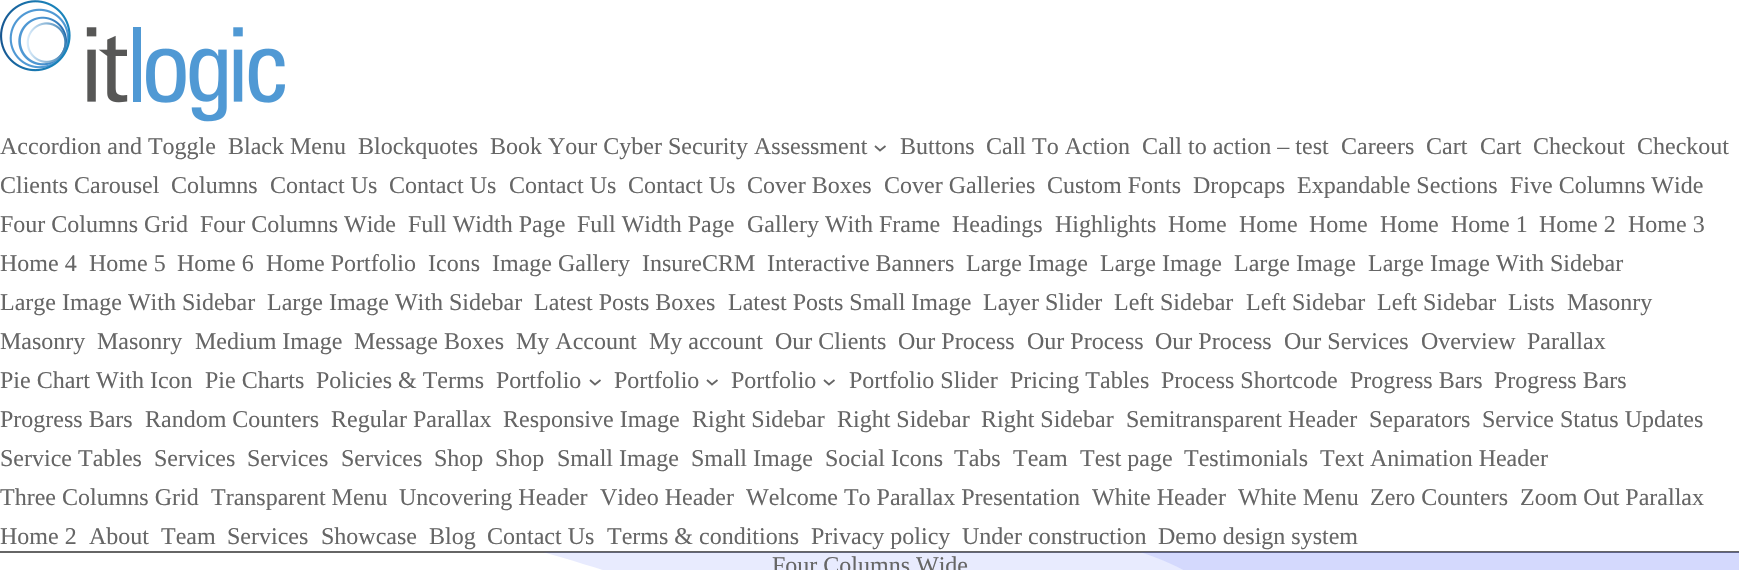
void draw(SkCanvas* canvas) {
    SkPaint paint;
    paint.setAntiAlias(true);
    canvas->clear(0xFFFFFFFF);
    paint.setColor(0xFF666666);
    canvas->drawRect(SkRect::MakeXYWH(0, 551, 1739, 2), paint);
    canvas->drawImageRect(SkImages::DeferredFromEncodedData(SkData::MakeFromFileName("img1.png")), SkRect::MakeXYWH(0, 0, 285, 122), SkSamplingOptions());
    SkFont font1(fontMgr->matchFamilyStyle("Liberation Serif", SkFontStyle::Normal()), 24);
    font1.setSubpixel(true);
    canvas->drawString("Accordion and Toggle", 0, 154, font1, paint);
    canvas->drawString("Black Menu", 228, 154, font1, paint);
    canvas->drawString("Blockquotes", 358, 154, font1, paint);
    canvas->drawString("Book Your Cyber Security Assessment", 490, 154, font1, paint);
    paint.setStyle(SkPaint::kStroke_Style);
    paint.setStrokeWidth(1.8f);
    canvas->drawPath(SkPathBuilder().moveTo(875, 146).lineTo(880, 150.5f).lineTo(885.5f, 146).detach(), paint);
    paint.setStyle(SkPaint::kFill_Style);
    canvas->drawString("Buttons", 900, 154, font1, paint);
    canvas->drawString("Call To Action", 986, 154, font1, paint);
    canvas->drawString("Call to action – test", 1142, 154, font1, paint);
    canvas->drawString("Careers", 1341, 154, font1, paint);
    canvas->drawString("Cart", 1426, 154, font1, paint);
    canvas->drawString("Cart", 1480, 154, font1, paint);
    canvas->drawString("Checkout", 1533, 154, font1, paint);
    canvas->drawString("Checkout", 1637, 154, font1, paint);
    canvas->drawString("Clients Carousel", 0, 193, font1, paint);
    canvas->drawString("Columns", 171, 193, font1, paint);
    canvas->drawString("Contact Us", 270, 193, font1, paint);
    canvas->drawString("Contact Us", 389, 193, font1, paint);
    canvas->drawString("Contact Us", 509, 193, font1, paint);
    canvas->drawString("Contact Us", 628, 193, font1, paint);
    canvas->drawString("Cover Boxes", 747, 193, font1, paint);
    canvas->drawString("Cover Galleries", 884, 193, font1, paint);
    canvas->drawString("Custom Fonts", 1047, 193, font1, paint);
    canvas->drawString("Dropcaps", 1193, 193, font1, paint);
    canvas->drawString("Expandable Sections", 1297, 193, font1, paint);
    canvas->drawString("Five Columns Wide", 1510, 193, font1, paint);
    canvas->drawString("Four Columns Grid", 0, 232, font1, paint);
    canvas->drawString("Four Columns Wide", 200, 232, font1, paint);
    canvas->drawString("Full Width Page", 408, 232, font1, paint);
    canvas->drawString("Full Width Page", 577, 232, font1, paint);
    canvas->drawString("Gallery With Frame", 747, 232, font1, paint);
    canvas->drawString("Headings", 952, 232, font1, paint);
    canvas->drawString("Highlights", 1055, 232, font1, paint);
    canvas->drawString("Home", 1168, 232, font1, paint);
    canvas->drawString("Home", 1239, 232, font1, paint);
    canvas->drawString("Home", 1309, 232, font1, paint);
    canvas->drawString("Home", 1380, 232, font1, paint);
    canvas->drawString("Home 1", 1451, 232, font1, paint);
    canvas->drawString("Home 2", 1539, 232, font1, paint);
    canvas->drawString("Home 3", 1628, 232, font1, paint);
    canvas->drawString("Home 4", 0, 271, font1, paint);
    canvas->drawString("Home 5", 89, 271, font1, paint);
    canvas->drawString("Home 6", 177, 271, font1, paint);
    canvas->drawString("Home Portfolio", 266, 271, font1, paint);
    canvas->drawString("Icons", 428, 271, font1, paint);
    canvas->drawString("Image Gallery", 492, 271, font1, paint);
    canvas->drawString("InsureCRM", 642, 271, font1, paint);
    canvas->drawString("Interactive Banners", 767, 271, font1, paint);
    canvas->drawString("Large Image", 966, 271, font1, paint);
    canvas->drawString("Large Image", 1100, 271, font1, paint);
    canvas->drawString("Large Image", 1234, 271, font1, paint);
    canvas->drawString("Large Image With Sidebar", 1368, 271, font1, paint);
    canvas->drawString("Large Image With Sidebar", 0, 310, font1, paint);
    canvas->drawString("Large Image With Sidebar", 267, 310, font1, paint);
    canvas->drawString("Latest Posts Boxes", 534, 310, font1, paint);
    canvas->drawString("Latest Posts Small Image", 728, 310, font1, paint);
    canvas->drawString("Layer Slider", 983, 310, font1, paint);
    canvas->drawString("Left Sidebar", 1114, 310, font1, paint);
    canvas->drawString("Left Sidebar", 1246, 310, font1, paint);
    canvas->drawString("Left Sidebar", 1377, 310, font1, paint);
    canvas->drawString("Lists", 1508, 310, font1, paint);
    canvas->drawString("Masonry", 1567, 310, font1, paint);
    canvas->drawString("Masonry", 0, 349, font1, paint);
    canvas->drawString("Masonry", 97, 349, font1, paint);
    canvas->drawString("Medium Image", 195, 349, font1, paint);
    canvas->drawString("Message Boxes", 354, 349, font1, paint);
    canvas->drawString("My Account", 516, 349, font1, paint);
    canvas->drawString("My account", 649, 349, font1, paint);
    canvas->drawString("Our Clients", 775, 349, font1, paint);
    canvas->drawString("Our Process", 898, 349, font1, paint);
    canvas->drawString("Our Process", 1027, 349, font1, paint);
    canvas->drawString("Our Process", 1155, 349, font1, paint);
    canvas->drawString("Our Services", 1284, 349, font1, paint);
    canvas->drawString("Overview", 1421, 349, font1, paint);
    canvas->drawString("Parallax", 1527, 349, font1, paint);
    canvas->drawString("Pie Chart With Icon", 0, 388, font1, paint);
    canvas->drawString("Pie Charts", 205, 388, font1, paint);
    canvas->drawString("Policies & Terms", 316, 388, font1, paint);
    canvas->drawString("Portfolio", 496, 388, font1, paint);
    paint.setStyle(SkPaint::kStroke_Style);
    canvas->drawPath(SkPathBuilder().moveTo(590, 380).lineTo(595, 384.5f).lineTo(600.5f, 380).detach(), paint);
    paint.setStyle(SkPaint::kFill_Style);
    canvas->drawString("Portfolio", 614, 388, font1, paint);
    paint.setStyle(SkPaint::kStroke_Style);
    canvas->drawPath(SkPathBuilder().moveTo(707, 380).lineTo(712, 384.5f).lineTo(717.5f, 380).detach(), paint);
    paint.setStyle(SkPaint::kFill_Style);
    canvas->drawString("Portfolio", 731, 388, font1, paint);
    paint.setStyle(SkPaint::kStroke_Style);
    canvas->drawPath(SkPathBuilder().moveTo(824, 380).lineTo(829, 384.5f).lineTo(834.5f, 380).detach(), paint);
    paint.setStyle(SkPaint::kFill_Style);
    canvas->drawString("Portfolio Slider", 849, 388, font1, paint);
    canvas->drawString("Pricing Tables", 1010, 388, font1, paint);
    canvas->drawString("Process Shortcode", 1161, 388, font1, paint);
    canvas->drawString("Progress Bars", 1350, 388, font1, paint);
    canvas->drawString("Progress Bars", 1494, 388, font1, paint);
    canvas->drawString("Progress Bars", 0, 427, font1, paint);
    canvas->drawString("Random Counters", 145, 427, font1, paint);
    canvas->drawString("Regular Parallax", 331, 427, font1, paint);
    canvas->drawString("Responsive Image", 503, 427, font1, paint);
    canvas->drawString("Right Sidebar", 692, 427, font1, paint);
    canvas->drawString("Right Sidebar", 837, 427, font1, paint);
    canvas->drawString("Right Sidebar", 981, 427, font1, paint);
    canvas->drawString("Semitransparent Header", 1126, 427, font1, paint);
    canvas->drawString("Separators", 1369, 427, font1, paint);
    canvas->drawString("Service Status Updates", 1482, 427, font1, paint);
    canvas->drawString("Service Tables", 0, 466, font1, paint);
    canvas->drawString("Services", 154, 466, font1, paint);
    canvas->drawString("Services", 247, 466, font1, paint);
    canvas->drawString("Services", 341, 466, font1, paint);
    canvas->drawString("Shop", 434, 466, font1, paint);
    canvas->drawString("Shop", 495, 466, font1, paint);
    canvas->drawString("Small Image", 557, 466, font1, paint);
    canvas->drawString("Small Image", 691, 466, font1, paint);
    canvas->drawString("Social Icons", 825, 466, font1, paint);
    canvas->drawString("Tabs", 954, 466, font1, paint);
    canvas->drawString("Team", 1013, 466, font1, paint);
    canvas->drawString("Test page", 1080, 466, font1, paint);
    canvas->drawString("Testimonials", 1184, 466, font1, paint);
    canvas->drawString("Text Animation Header", 1320, 466, font1, paint);
    canvas->drawString("Three Columns Grid", 0, 505, font1, paint);
    canvas->drawString("Transparent Menu", 211, 505, font1, paint);
    canvas->drawString("Uncovering Header", 399, 505, font1, paint);
    canvas->drawString("Video Header", 600, 505, font1, paint);
    canvas->drawString("Welcome To Parallax Presentation", 746, 505, font1, paint);
    canvas->drawString("White Header", 1092, 505, font1, paint);
    canvas->drawString("White Menu", 1238, 505, font1, paint);
    canvas->drawString("Zero Counters", 1370, 505, font1, paint);
    canvas->drawString("Zoom Out Parallax", 1520, 505, font1, paint);
    canvas->drawString("Home 2", 0, 544, font1, paint);
    canvas->drawString("About", 89, 544, font1, paint);
    canvas->drawString("Team", 161, 544, font1, paint);
    canvas->drawString("Services", 227, 544, font1, paint);
    canvas->drawString("Showcase", 321, 544, font1, paint);
    canvas->drawString("Blog", 429, 544, font1, paint);
    canvas->drawString("Contact Us", 487, 544, font1, paint);
    canvas->drawString("Terms & conditions", 607, 544, font1, paint);
    canvas->drawString("Privacy policy", 811, 544, font1, paint);
    canvas->drawString("Under construction", 962, 544, font1, paint);
    canvas->drawString("Demo design system", 1158, 544, font1, paint);
    canvas->drawImageRect(SkImages::DeferredFromEncodedData(SkData::MakeFromFileName("img2.png")), SkRect::MakeXYWH(543, 552, 1196, 18), SkSamplingOptions());
    canvas->drawString("Four Columns Wide", 772, 573, font1, paint);
}
